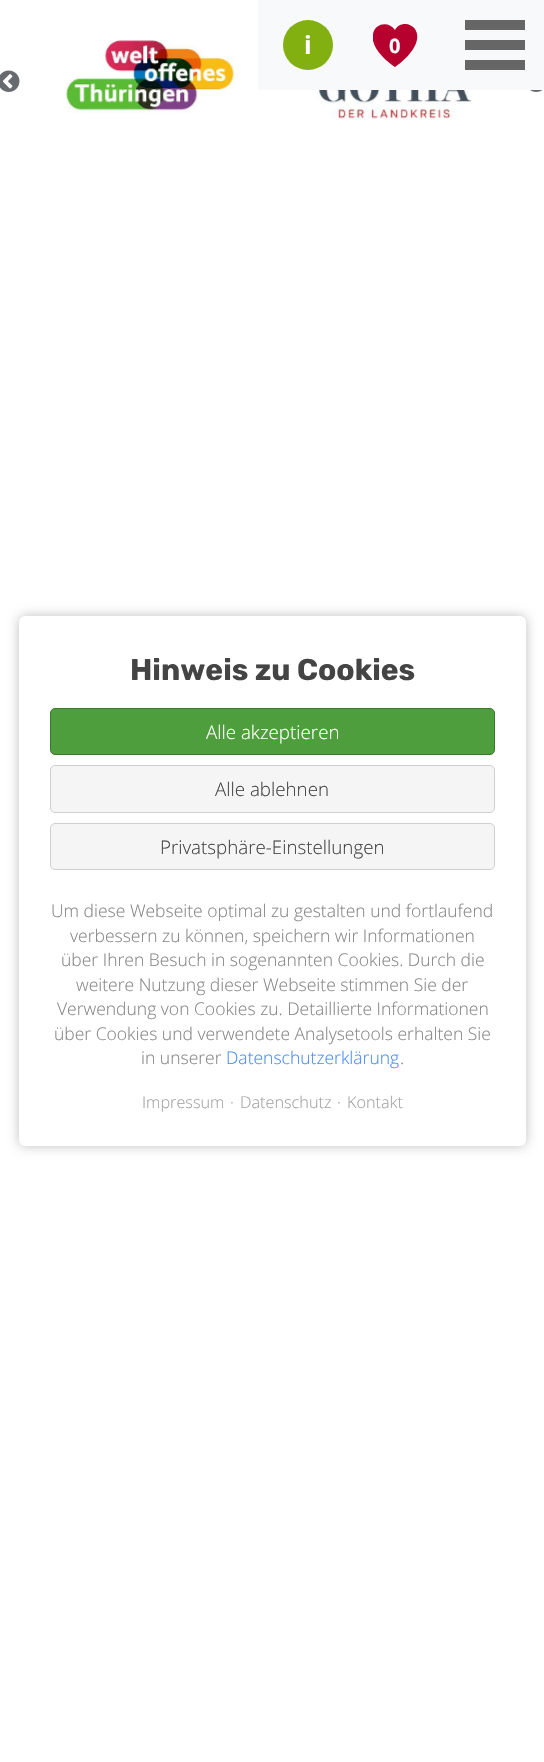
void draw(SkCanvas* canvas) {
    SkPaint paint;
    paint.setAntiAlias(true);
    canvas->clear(0xFFFFFFFF);
    paint.setColor(0xFFF8F9FA);
    canvas->drawRect(SkRect::MakeXYWH(258, 0, 286, 90), paint);
    paint.setColor(0xFF666666);
    canvas->drawRect(SkRect::MakeXYWH(465, 20, 60, 10), paint);
    canvas->drawRect(SkRect::MakeXYWH(465, 40, 60, 10), paint);
    canvas->drawRect(SkRect::MakeXYWH(465, 60, 60, 10), paint);
    canvas->drawImageRect(SkImages::DeferredFromEncodedData(SkData::MakeFromFileName("img1.png")), SkRect::MakeXYWH(0, 70, 20, 22), SkSamplingOptions());
    canvas->drawImageRect(SkImages::DeferredFromEncodedData(SkData::MakeFromFileName("img2.png")), SkRect::MakeXYWH(65, 40, 170, 74), SkSamplingOptions());
    canvas->drawImageRect(SkImages::DeferredFromEncodedData(SkData::MakeFromFileName("img3.png")), SkRect::MakeXYWH(317, 90, 155, 30), SkSamplingOptions());
    canvas->drawImageRect(SkImages::DeferredFromEncodedData(SkData::MakeFromFileName("img4.png")), SkRect::MakeXYWH(530, 90, 13, 2), SkSamplingOptions());
    paint.setColor(0xFF83B011);
    canvas->drawCircle(308, 45, 25, paint);
    SkFont font1(fontMgr->matchFamilyStyle("Open Sans", SkFontStyle::Bold()), 25);
    font1.setSubpixel(true);
    paint.setColor(0xFFFFFFFF);
    canvas->drawString("i", 304, 54, font1, paint);
    canvas->save();
    canvas->clipRect(SkRect::MakeXYWH(373, 24, 45, 44));
    paint.setColor(0xFFB6002E);
    canvas->drawPath(SkPathBuilder().moveTo(405, 24).cubicTo(401, 24, 397, 26, 395, 30).cubicTo(389, 21, 375, 23, 373, 34).cubicTo(370, 47, 386, 61, 395, 67).cubicTo(404, 61, 424, 43, 415, 29).cubicTo(413, 26, 409, 24, 405, 24).close().detach(), paint);
    canvas->restore();
    SkFont font2(fontMgr->matchFamilyStyle("Open Sans", SkFontStyle::Bold()), 20);
    font2.setSubpixel(true);
    paint.setColor(0xFFFFFFFF);
    canvas->drawString("0", 389, 53, font2, paint);
    paint.setColor(0x40000000);
    paint.setMaskFilter(SkMaskFilter::MakeBlur(kNormal_SkBlurStyle, 6));
    canvas->drawRoundRect(SkRect::MakeXYWH(19, 616, 507, 530), 6, 6, paint);
    paint.setMaskFilter(nullptr);
    paint.setColor(0xFFFFFFFF);
    canvas->drawRoundRect(SkRect::MakeXYWH(19, 616, 507, 530), 6, 6, paint);
    SkFont font3(fontMgr->matchFamilyStyle("Rubik", SkFontStyle(300, SkFontStyle::kNormal_Width, SkFontStyle::kUpright_Slant)), 30);
    font3.setSubpixel(true);
    paint.setColor(0xFF444444);
    canvas->drawString("Hinweis zu Cookies", 130, 680, font3, paint);
    paint.setColor(0xFF4E9E3E);
    canvas->drawRoundRect(SkRect::MakeXYWH(50.5f, 708.5f, 444, 46), 4.5f, 4.5f, paint);
    paint.setStyle(SkPaint::kStroke_Style);
    paint.setStrokeWidth(1);
    paint.setColor(0xFF3E7830);
    canvas->drawRoundRect(SkRect::MakeXYWH(50.5f, 708.5f, 444, 46), 4.5f, 4.5f, paint);
    SkFont font4(fontMgr->matchFamilyStyle("Open Sans", SkFontStyle(300, SkFontStyle::kNormal_Width, SkFontStyle::kUpright_Slant)), 18.75f);
    font4.setSubpixel(true);
    paint.setStyle(SkPaint::kFill_Style);
    paint.setColor(0xFFFFFFFF);
    canvas->drawString("Alle akzeptieren", 206, 739, font4, paint);
    paint.setColor(0xFFF5F5F5);
    canvas->drawRoundRect(SkRect::MakeXYWH(50.5f, 765.5f, 444, 47), 4.5f, 4.5f, paint);
    paint.setStyle(SkPaint::kStroke_Style);
    paint.setColor(0xFFCFCFCF);
    canvas->drawRoundRect(SkRect::MakeXYWH(50.5f, 765.5f, 444, 47), 4.5f, 4.5f, paint);
    paint.setStyle(SkPaint::kFill_Style);
    paint.setColor(0xFF444444);
    canvas->drawString("Alle ablehnen", 215, 796, font4, paint);
    paint.setColor(0xFFF5F5F5);
    canvas->drawRoundRect(SkRect::MakeXYWH(50.5f, 823.5f, 444, 46), 4.5f, 4.5f, paint);
    paint.setStyle(SkPaint::kStroke_Style);
    paint.setColor(0xFFCFCFCF);
    canvas->drawRoundRect(SkRect::MakeXYWH(50.5f, 823.5f, 444, 46), 4.5f, 4.5f, paint);
    paint.setStyle(SkPaint::kFill_Style);
    paint.setColor(0xFF444444);
    canvas->drawString("Privatsphäre-Einstellungen", 160, 854, font4, paint);
    SkFont font5(fontMgr->matchFamilyStyle("Open Sans", SkFontStyle(300, SkFontStyle::kNormal_Width, SkFontStyle::kUpright_Slant)), 17.5f);
    font5.setSubpixel(true);
    paint.setColor(0xFF868686);
    canvas->drawString("Um diese Webseite optimal zu gestalten und fortlaufend", 51, 917, font5, paint);
    canvas->drawString("verbessern zu können, speichern wir Informationen", 70, 942, font5, paint);
    canvas->drawString("über Ihren Besuch in sogenannten Cookies. Durch die", 61, 966, font5, paint);
    canvas->drawString("weitere Nutzung dieser Webseite stimmen Sie der", 76, 991, font5, paint);
    canvas->drawString("Verwendung von Cookies zu. Detaillierte Informationen", 57, 1015, font5, paint);
    canvas->drawString("über Cookies und verwendete Analysetools erhalten Sie", 54, 1040, font5, paint);
    canvas->drawString("in unserer", 141, 1064, font5, paint);
    paint.setColor(0xFF478CFA);
    canvas->drawString("Datenschutzerklärung", 226, 1064, font5, paint);
    paint.setColor(0xFF868686);
    canvas->drawString(".", 400, 1064, font5, paint);
    SkFont font6(fontMgr->matchFamilyStyle("Open Sans", SkFontStyle(300, SkFontStyle::kNormal_Width, SkFontStyle::kUpright_Slant)), 16.25f);
    font6.setSubpixel(true);
    paint.setColor(0xFFA2A2A2);
    canvas->drawString("Impressum", 142, 1108, font6, paint);
    canvas->drawString("·", 230, 1108, font6, paint);
    canvas->drawString("Datenschutz", 240, 1108, font6, paint);
    canvas->drawString("·", 337, 1108, font6, paint);
    canvas->drawString("Kontakt", 347, 1108, font6, paint);
}
